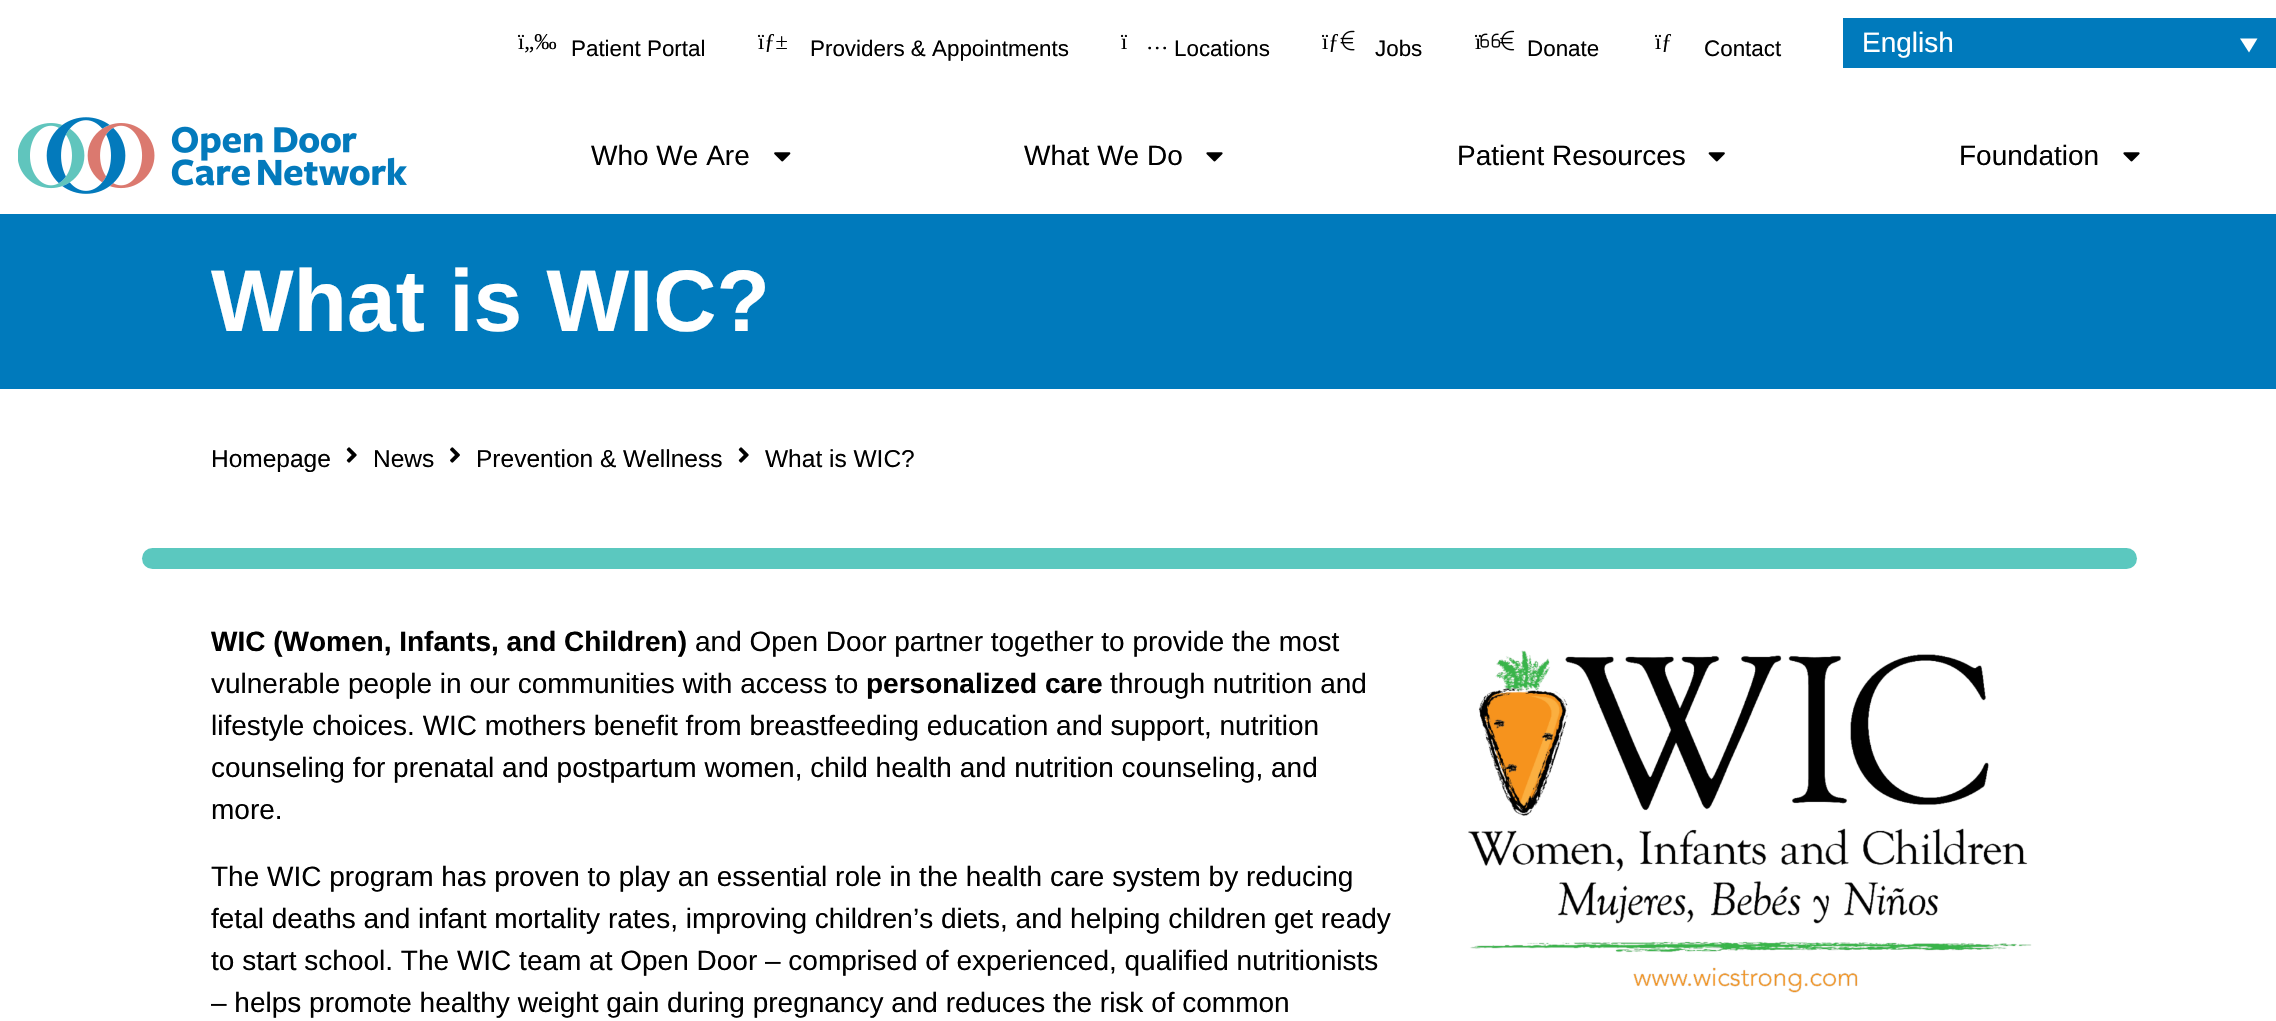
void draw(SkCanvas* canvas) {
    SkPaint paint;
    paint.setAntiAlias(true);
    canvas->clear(0xFFFFFFFF);
    SkFont font1(fontMgr->matchFamilyStyle("Liberation Serif", SkFontStyle::Normal()), 22.4f);
    font1.setSubpixel(true);
    paint.setColor(0xFF000000);
    canvas->drawString("ï„‰", 518, 49, font1, paint);
    SkFont font2(fontMgr->matchFamilyStyle("Liberation Sans", SkFontStyle::Normal()), 22.4f);
    font2.setSubpixel(true);
    canvas->drawString("Patient Portal", 571, 56, font2, paint);
    canvas->drawString("ïƒ±", 758, 49, font1, paint);
    canvas->drawString("Providers & Appointments", 810, 56, font2, paint);
    canvas->drawString("ï", 1121, 49, font1, paint);
    canvas->drawString("…", 1146, 49, font1, paint);
    canvas->drawString("Locations", 1174, 56, font2, paint);
    canvas->drawString("ïƒ", 1322, 49, font1, paint);
    canvas->drawImageRect(SkImages::DeferredFromEncodedData(SkData::MakeFromFileName("img1.png")), SkRect::MakeXYWH(1340, 30, 15, 21), SkSamplingOptions());
    canvas->drawString("Jobs", 1375, 56, font2, paint);
    canvas->drawImageRect(SkImages::DeferredFromEncodedData(SkData::MakeFromFileName("img2.png")), SkRect::MakeXYWH(1480, 30, 35, 21), SkSamplingOptions());
    canvas->drawString("ï", 1475, 49, font1, paint);
    canvas->drawString("Donate", 1527, 56, font2, paint);
    canvas->drawString("ïƒ", 1655, 49, font1, paint);
    canvas->drawString("Contact", 1704, 56, font2, paint);
    paint.setColor(0xFF007ABC);
    canvas->drawRect(SkRect::MakeXYWH(1843, 18, 433, 50), paint);
    SkFont font3(fontMgr->matchFamilyStyle("Liberation Sans", SkFontStyle::Normal()), 28);
    font3.setSubpixel(true);
    paint.setColor(0xFFFFFFFF);
    canvas->drawString("English", 1862, 52, font3, paint);
    canvas->drawPath(SkPathBuilder().moveTo(2240, 38.5f).lineTo(2257.5f, 38.5f).lineTo(2249, 52.5f).close().detach(), paint);
    canvas->drawImageRect(SkImages::DeferredFromEncodedData(SkData::MakeFromFileName("img3.png")), SkRect::MakeXYWH(18, 117, 389, 77), SkSamplingOptions());
    paint.setColor(0xFF000000);
    canvas->drawString("Who We Are", 591, 165, font3, paint);
    canvas->drawImageRect(SkImages::DeferredFromEncodedData(SkData::MakeFromFileName("img4.png")), SkRect::MakeXYWH(774, 152, 17, 10), SkSamplingOptions());
    canvas->drawString("What We Do", 1024, 165, font3, paint);
    canvas->drawImageRect(SkImages::DeferredFromEncodedData(SkData::MakeFromFileName("img5.png")), SkRect::MakeXYWH(1206, 152, 17, 10), SkSamplingOptions());
    canvas->drawString("Patient Resources", 1457, 165, font3, paint);
    canvas->drawImageRect(SkImages::DeferredFromEncodedData(SkData::MakeFromFileName("img6.png")), SkRect::MakeXYWH(1708, 152, 17, 10), SkSamplingOptions());
    canvas->drawString("Foundation", 1959, 165, font3, paint);
    canvas->drawImageRect(SkImages::DeferredFromEncodedData(SkData::MakeFromFileName("img5.png")), SkRect::MakeXYWH(2123, 152, 17, 10), SkSamplingOptions());
    paint.setColor(0xFF007ABC);
    canvas->drawRect(SkRect::MakeXYWH(0, 214, 2276, 175), paint);
    SkFont font4(fontMgr->matchFamilyStyle("Liberation Sans", SkFontStyle::Bold()), 87.5f);
    font4.setSubpixel(true);
    paint.setColor(0xFFFFFFFF);
    canvas->drawString("What is WIC?", 211, 331, font4, paint);
    SkFont font5(fontMgr->matchFamilyStyle("Liberation Sans", SkFontStyle::Normal()), 24.5f);
    font5.setSubpixel(true);
    paint.setColor(0xFF000000);
    canvas->drawString("Homepage", 211, 467, font5, paint);
    canvas->drawImageRect(SkImages::DeferredFromEncodedData(SkData::MakeFromFileName("img7.png")), SkRect::MakeXYWH(346, 447, 11, 16), SkSamplingOptions());
    canvas->drawString("News", 373, 467, font5, paint);
    canvas->drawImageRect(SkImages::DeferredFromEncodedData(SkData::MakeFromFileName("img8.png")), SkRect::MakeXYWH(450, 447, 10, 16), SkSamplingOptions());
    canvas->drawString("Prevention & Wellness", 476, 467, font5, paint);
    canvas->drawImageRect(SkImages::DeferredFromEncodedData(SkData::MakeFromFileName("img7.png")), SkRect::MakeXYWH(738, 447, 11, 16), SkSamplingOptions());
    canvas->drawString("What is WIC?", 765, 467, font5, paint);
    paint.setColor(0xFF5BC8BF);
    canvas->drawRoundRect(SkRect::MakeXYWH(142, 548, 1995, 21), 10.5f, 10.5f, paint);
    SkFont font6(fontMgr->matchFamilyStyle("Liberation Sans", SkFontStyle::Bold()), 28);
    font6.setSubpixel(true);
    paint.setColor(0xFF000000);
    canvas->drawString("WIC (Women, Infants, and Children)", 211, 651, font6, paint);
    canvas->drawString("and Open Door partner together to provide the most", 695, 651, font3, paint);
    canvas->drawString("vulnerable people in our communities with access to", 211, 693, font3, paint);
    canvas->drawString("personalized care", 866, 693, font6, paint);
    canvas->drawString("through nutrition and", 1110, 693, font3, paint);
    canvas->drawString("lifestyle choices. WIC mothers benefit from breastfeeding education and support, nutrition", 211, 735, font3, paint);
    canvas->drawString("counseling for prenatal and postpartum women, child health and nutrition counseling, and", 211, 777, font3, paint);
    canvas->drawString("more.", 211, 819, font3, paint);
    canvas->drawString("The WIC program has proven to play an essential role in the health care system by reducing", 211, 886, font3, paint);
    canvas->drawString("fetal deaths and infant mortality rates, improving children’s diets, and helping children get ready", 211, 928, font3, paint);
    canvas->drawString("to start school. The WIC team at Open Door – comprised of experienced, qualified nutritionists", 211, 970, font3, paint);
    canvas->drawString("– helps promote healthy weight gain during pregnancy and reduces the risk of common", 211, 1012, font3, paint);
    canvas->drawImageRect(SkImages::DeferredFromEncodedData(SkData::MakeFromFileName("img9.png")), SkRect::MakeXYWH(1468, 650, 564, 343), SkSamplingOptions());
}
